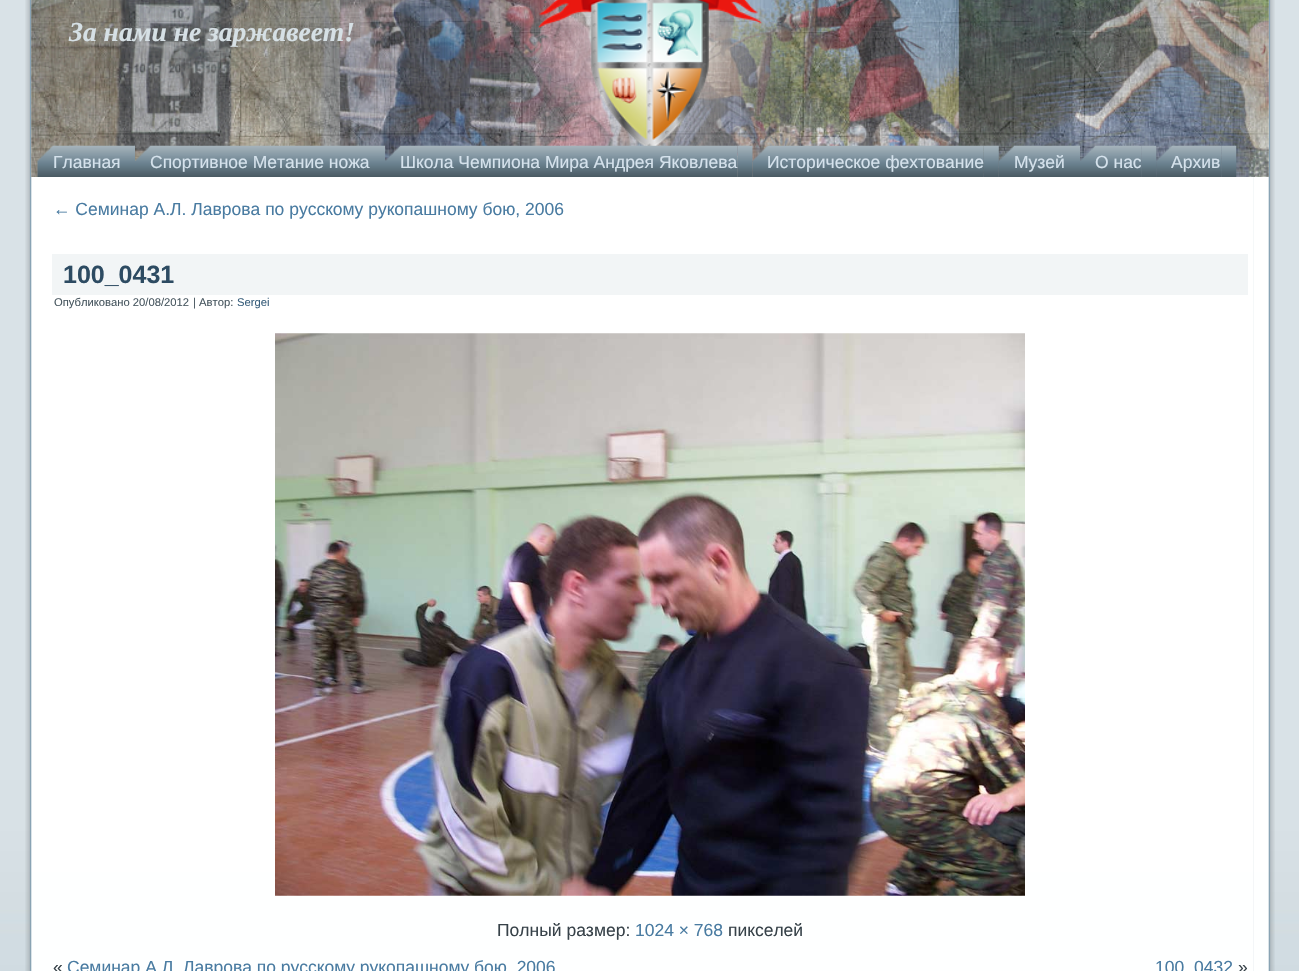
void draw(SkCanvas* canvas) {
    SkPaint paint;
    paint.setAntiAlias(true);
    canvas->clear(0xFFFFFFFF);
    canvas->drawImageRect(SkImages::DeferredFromEncodedData(SkData::MakeFromFileName("img1.png")), SkRect::MakeXYWH(0, 0, 1299, 971), SkSamplingOptions());
    canvas->drawImageRect(SkImages::DeferredFromEncodedData(SkData::MakeFromFileName("img2.png")), SkRect::MakeXYWH(25, 0, 1229, 971), SkSamplingOptions());
    canvas->drawImageRect(SkImages::DeferredFromEncodedData(SkData::MakeFromFileName("img3.png")), SkRect::MakeXYWH(1254, 0, 21, 971), SkSamplingOptions());
    canvas->drawImageRect(SkImages::DeferredFromEncodedData(SkData::MakeFromFileName("img4.png")), SkRect::MakeXYWH(31, 0, 1238, 177), SkSamplingOptions());
    SkFont font1(fontMgr->matchFamilyStyle("Liberation Serif", SkFontStyle::BoldItalic()), 27.5f);
    font1.setSubpixel(true);
    paint.setColor(0xFFD6E0E5);
    canvas->drawString("За нами не заржавеет!", 69, 41, font1, paint);
    canvas->drawImageRect(SkImages::DeferredFromEncodedData(SkData::MakeFromFileName("img5.png")), SkRect::MakeXYWH(497, 0, 306, 177), SkSamplingOptions());
    canvas->drawImageRect(SkImages::DeferredFromEncodedData(SkData::MakeFromFileName("img6.png")), SkRect::MakeXYWH(37, 145, 83, 32), SkSamplingOptions());
    canvas->drawImageRect(SkImages::DeferredFromEncodedData(SkData::MakeFromFileName("img7.png")), SkRect::MakeXYWH(120, 145, 15, 32), SkSamplingOptions());
    SkFont font2(fontMgr->matchFamilyStyle("Liberation Sans", SkFontStyle::Normal()), 17.5f);
    font2.setSubpixel(true);
    paint.setColor(0xFFD5E2EC);
    canvas->drawString("Главная", 53, 168, font2, paint);
    canvas->drawImageRect(SkImages::DeferredFromEncodedData(SkData::MakeFromFileName("img8.png")), SkRect::MakeXYWH(135, 145, 235, 32), SkSamplingOptions());
    canvas->drawImageRect(SkImages::DeferredFromEncodedData(SkData::MakeFromFileName("img9.png")), SkRect::MakeXYWH(370, 145, 15, 32), SkSamplingOptions());
    canvas->drawString("Спортивное Метание ножа", 150, 168, font2, paint);
    canvas->drawImageRect(SkImages::DeferredFromEncodedData(SkData::MakeFromFileName("img10.png")), SkRect::MakeXYWH(385, 145, 353, 32), SkSamplingOptions());
    canvas->drawImageRect(SkImages::DeferredFromEncodedData(SkData::MakeFromFileName("img11.png")), SkRect::MakeXYWH(737, 145, 16, 32), SkSamplingOptions());
    canvas->drawString("Школа Чемпиона Мира Андрея Яковлева", 400, 168, font2, paint);
    canvas->drawImageRect(SkImages::DeferredFromEncodedData(SkData::MakeFromFileName("img12.png")), SkRect::MakeXYWH(752, 145, 232, 32), SkSamplingOptions());
    canvas->drawImageRect(SkImages::DeferredFromEncodedData(SkData::MakeFromFileName("img13.png")), SkRect::MakeXYWH(983, 145, 16, 32), SkSamplingOptions());
    canvas->drawString("Историческое фехтование", 767, 168, font2, paint);
    canvas->drawImageRect(SkImages::DeferredFromEncodedData(SkData::MakeFromFileName("img14.png")), SkRect::MakeXYWH(999, 145, 66, 32), SkSamplingOptions());
    canvas->drawImageRect(SkImages::DeferredFromEncodedData(SkData::MakeFromFileName("img15.png")), SkRect::MakeXYWH(1065, 145, 15, 32), SkSamplingOptions());
    canvas->drawString("Музей", 1014, 168, font2, paint);
    canvas->drawImageRect(SkImages::DeferredFromEncodedData(SkData::MakeFromFileName("img16.png")), SkRect::MakeXYWH(1080, 145, 62, 32), SkSamplingOptions());
    canvas->drawImageRect(SkImages::DeferredFromEncodedData(SkData::MakeFromFileName("img17.png")), SkRect::MakeXYWH(1141, 145, 16, 32), SkSamplingOptions());
    canvas->drawString("О нас", 1095, 168, font2, paint);
    canvas->drawImageRect(SkImages::DeferredFromEncodedData(SkData::MakeFromFileName("img18.png")), SkRect::MakeXYWH(1156, 145, 66, 32), SkSamplingOptions());
    canvas->drawImageRect(SkImages::DeferredFromEncodedData(SkData::MakeFromFileName("img19.png")), SkRect::MakeXYWH(1221, 145, 16, 32), SkSamplingOptions());
    canvas->drawString("Архив", 1171, 168, font2, paint);
    paint.setColor(0xFF497BA1);
    canvas->drawString("← Семинар А.Л. Лаврова по русскому рукопашному бою, 2006", 53, 215, font2, paint);
    paint.setColor(0xFFF2F5F6);
    canvas->drawRect(SkRect::MakeXYWH(52, 254, 1196, 41), paint);
    SkFont font3(fontMgr->matchFamilyStyle("Liberation Sans", SkFontStyle::Bold()), 25);
    font3.setSubpixel(true);
    paint.setColor(0xFF2D4B62);
    canvas->drawString("100_0431", 63, 283, font3, paint);
    SkFont font4(fontMgr->matchFamilyStyle("Liberation Sans", SkFontStyle::Normal()), 11.25f);
    font4.setSubpixel(true);
    paint.setColor(0xFF485760);
    canvas->drawString("Опубликовано 20/08/2012", 54, 306, font4, paint);
    canvas->drawString("| Автор:", 193, 306, font4, paint);
    paint.setColor(0xFF385E7B);
    canvas->drawString("Sergei", 237, 306, font4, paint);
    canvas->drawImageRect(SkImages::DeferredFromEncodedData(SkData::MakeFromFileName("img20.png")), SkRect::MakeXYWH(275, 333, 750, 563), SkSamplingOptions());
    paint.setColor(0xFF374249);
    canvas->drawString("Полный размер:", 497, 936, font2, paint);
    paint.setColor(0xFF497BA1);
    canvas->drawString("1024 × 768", 635, 936, font2, paint);
    paint.setColor(0xFF374249);
    canvas->drawString("пикселей", 728, 936, font2, paint);
    canvas->drawString("«", 53, 973, font2, paint);
    paint.setColor(0xFF497BA1);
    canvas->drawString("Семинар А.Л. Лаврова по русскому рукопашному бою, 2006", 67, 973, font2, paint);
    canvas->drawString("100_0432", 1155, 973, font2, paint);
    paint.setColor(0xFF374249);
    canvas->drawString("»", 1238, 973, font2, paint);
}
